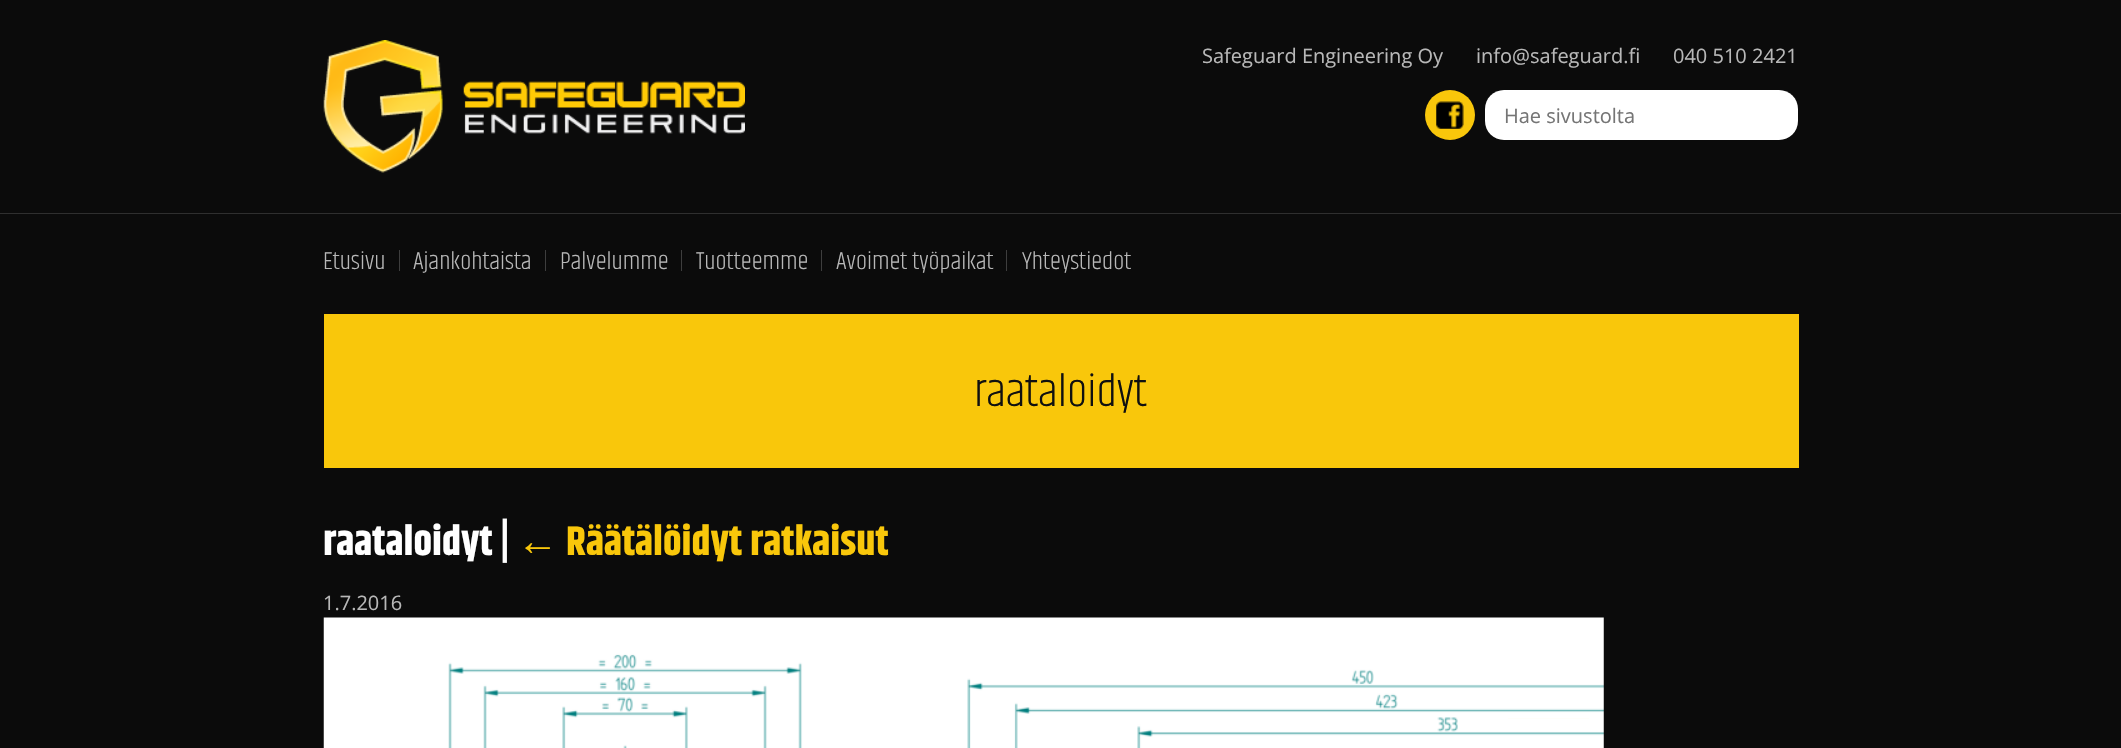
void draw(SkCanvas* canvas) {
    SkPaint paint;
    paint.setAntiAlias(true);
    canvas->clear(0xFF0B0B0B);
    canvas->drawImageRect(SkImages::DeferredFromEncodedData(SkData::MakeFromFileName("img1.png")), SkRect::MakeXYWH(323, 40, 422, 133), SkSamplingOptions());
    SkFont font1(fontMgr->matchFamilyStyle("Open Sans", SkFontStyle::Normal()), 20);
    font1.setSubpixel(true);
    paint.setColor(0xFFB8B8B8);
    canvas->drawString("Safeguard Engineering Oy", 1202, 63, font1, paint);
    canvas->drawString("info@safeguard.fi", 1476, 63, font1, paint);
    canvas->drawString("040 510 2421", 1673, 63, font1, paint);
    paint.setColor(0xFFF9C70B);
    canvas->drawCircle(1450, 115, 25, paint);
    canvas->drawImageRect(SkImages::DeferredFromEncodedData(SkData::MakeFromFileName("img2.png")), SkRect::MakeXYWH(1436, 101, 28, 28), SkSamplingOptions());
    paint.setColor(0xFFFFFFFF);
    canvas->drawPath(SkPathBuilder().moveTo(1504, 90).lineTo(1748, 90).lineTo(1748, 140).lineTo(1504, 140).cubicTo(1493.5f, 140, 1485, 131.5f, 1485, 121).lineTo(1485, 109).cubicTo(1485, 98.5f, 1493.5f, 90, 1504, 90).close().detach(), paint);
    paint.setColor(0xFF757575);
    canvas->drawString("Hae sivustolta", 1504, 123, font1, paint);
    paint.setColor(0xFFFFFFFF);
    canvas->drawPath(SkPathBuilder().moveTo(1748, 90).lineTo(1779, 90).cubicTo(1789.5f, 90, 1798, 98.5f, 1798, 109).lineTo(1798, 121).cubicTo(1798, 131.5f, 1789.5f, 140, 1779, 140).lineTo(1748, 140).close().detach(), paint);
    paint.setColor(0xFF2F2F2F);
    canvas->drawRect(SkRect::MakeXYWH(0, 213, 2121, 1), paint);
    SkFont font2(fontMgr->matchFamilyStyle("Khand", SkFontStyle(300, SkFontStyle::kNormal_Width, SkFontStyle::kUpright_Slant)), 25);
    font2.setSubpixel(true);
    paint.setColor(0xFFB8B8B8);
    canvas->drawString("Etusivu", 323, 269, font2, paint);
    paint.setColor(0xFF3E3E3E);
    canvas->drawRect(SkRect::MakeXYWH(399, 250, 1, 21), paint);
    paint.setColor(0xFFB8B8B8);
    canvas->drawString("Ajankohtaista", 413, 269, font2, paint);
    paint.setColor(0xFF3E3E3E);
    canvas->drawRect(SkRect::MakeXYWH(545, 250, 1, 21), paint);
    paint.setColor(0xFFB8B8B8);
    canvas->drawString("Palvelumme", 560, 269, font2, paint);
    paint.setColor(0xFF3E3E3E);
    canvas->drawRect(SkRect::MakeXYWH(681, 250, 1, 21), paint);
    paint.setColor(0xFFB8B8B8);
    canvas->drawString("Tuotteemme", 696, 269, font2, paint);
    paint.setColor(0xFF3E3E3E);
    canvas->drawRect(SkRect::MakeXYWH(821, 250, 1, 21), paint);
    paint.setColor(0xFFB8B8B8);
    canvas->drawString("Avoimet työpaikat", 836, 269, font2, paint);
    paint.setColor(0xFF3E3E3E);
    canvas->drawRect(SkRect::MakeXYWH(1006, 250, 1, 21), paint);
    paint.setColor(0xFFB8B8B8);
    canvas->drawString("Yhteystiedot", 1022, 269, font2, paint);
    paint.setColor(0xFFF9C70B);
    canvas->drawRect(SkRect::MakeXYWH(324, 314, 1475, 154), paint);
    SkFont font3(fontMgr->matchFamilyStyle("Khand", SkFontStyle(300, SkFontStyle::kNormal_Width, SkFontStyle::kUpright_Slant)), 46);
    font3.setSubpixel(true);
    paint.setColor(0xFF101010);
    canvas->drawString("raataloidyt", 974, 406, font3, paint);
    SkFont font4(fontMgr->matchFamilyStyle("Khand", SkFontStyle::Bold()), 41.25f);
    font4.setSubpixel(true);
    paint.setColor(0xFFFFFFFF);
    canvas->drawString("raataloidyt |", 323, 555, font4, paint);
    SkFont font5(fontMgr->matchFamilyStyle("Liberation Sans", SkFontStyle::Bold()), 41.25f);
    font5.setSubpixel(true);
    paint.setColor(0xFFF9C70B);
    canvas->drawString("←", 517, 555, font5, paint);
    canvas->drawString("Räätälöidyt ratkaisut", 566, 555, font4, paint);
    paint.setColor(0xFFB8B8B8);
    canvas->drawString("1.7.2016", 323, 610, font1, paint);
    canvas->drawImageRect(SkImages::DeferredFromEncodedData(SkData::MakeFromFileName("img3.png")), SkRect::MakeXYWH(323, 617, 1281, 131), SkSamplingOptions());
    paint.setColor(0xFFFFFEFA);
    canvas->drawRect(SkRect::MakeXYWH(1508, 718, 81, 1), paint);
}
